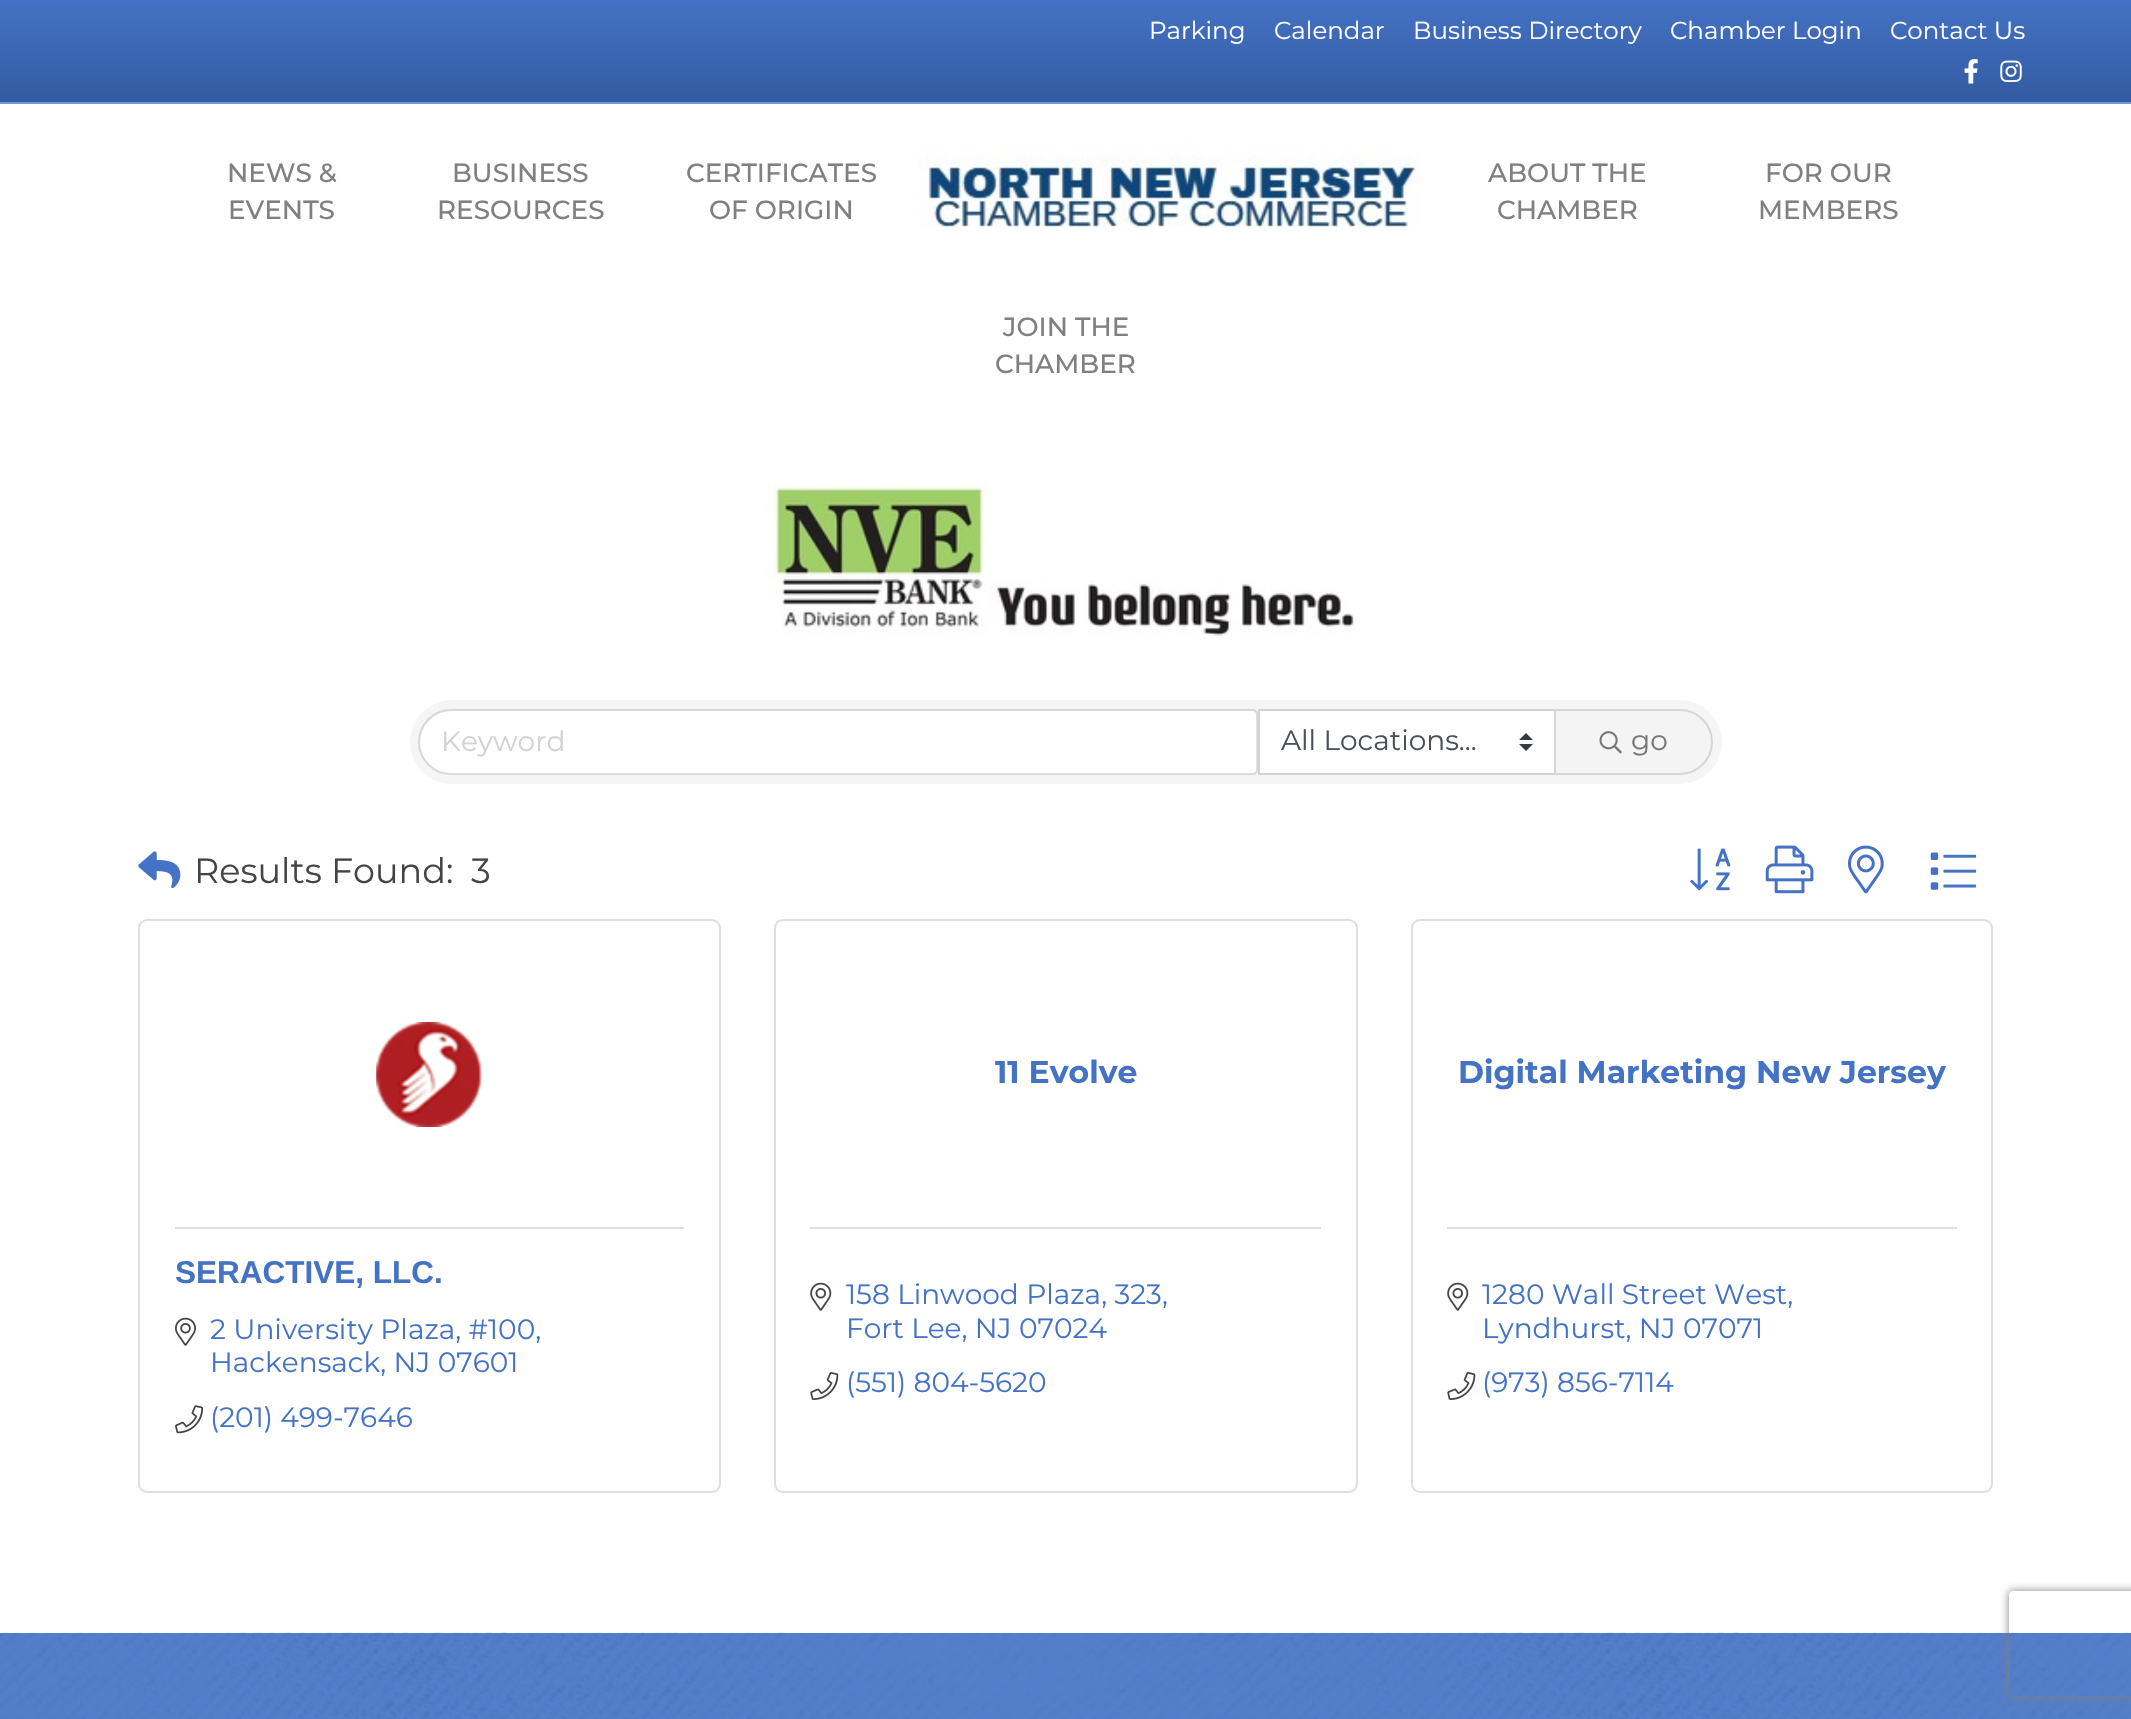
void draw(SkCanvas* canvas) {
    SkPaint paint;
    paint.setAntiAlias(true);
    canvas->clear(0xFFFFFFFF);
    {
        const SkColor colors[] = {0xFF4472C4, 0xFF335BA2};
        const float stops[] = {0, 1};
        const SkPoint ends[] = {{1066, 0}, {1066, 102}};
        paint.setShader(SkGradientShader::MakeLinear(ends, colors, stops, 2, SkTileMode::kClamp));
        paint.setAlpha(255);
    }
    canvas->drawRect(SkRect::MakeXYWH(0, 0, 2131, 102), paint);
    paint.setShader(nullptr);
    paint.setColor(0xFF7698D4);
    canvas->drawRect(SkRect::MakeXYWH(0, 102, 2131, 2), paint);
    SkFont font1(fontMgr->matchFamilyStyle("Montserrat", SkFontStyle::Normal()), 24.5f);
    font1.setSubpixel(true);
    paint.setColor(0xFFFFFFFF);
    canvas->drawString("Parking", 1149, 39, font1, paint);
    canvas->drawString("Calendar", 1274, 39, font1, paint);
    canvas->drawString("Business Directory", 1413, 39, font1, paint);
    canvas->drawString("Chamber Login", 1670, 39, font1, paint);
    canvas->drawString("Contact Us", 1890, 39, font1, paint);
    canvas->drawImageRect(SkImages::DeferredFromEncodedData(SkData::MakeFromFileName("img1.png")), SkRect::MakeXYWH(1964, 59, 14, 25), SkSamplingOptions());
    canvas->drawImageRect(SkImages::DeferredFromEncodedData(SkData::MakeFromFileName("img2.png")), SkRect::MakeXYWH(2000, 60, 22, 22), SkSamplingOptions());
    SkFont font2(fontMgr->matchFamilyStyle("Montserrat", SkFontStyle(500, SkFontStyle::kNormal_Width, SkFontStyle::kUpright_Slant)), 26.25f);
    font2.setSubpixel(true);
    paint.setColor(0xFF808080);
    canvas->drawString("NEWS &", 227, 182, font2, paint);
    canvas->drawString("EVENTS", 228, 219, font2, paint);
    canvas->drawString("BUSINESS", 452, 182, font2, paint);
    canvas->drawString("RESOURCES", 437, 219, font2, paint);
    canvas->drawString("CERTIFICATES", 686, 182, font2, paint);
    canvas->drawString("OF ORIGIN", 709, 219, font2, paint);
    canvas->drawImageRect(SkImages::DeferredFromEncodedData(SkData::MakeFromFileName("img3.png")), SkRect::MakeXYWH(917, 142, 504, 86), SkSamplingOptions());
    canvas->drawString("ABOUT THE", 1488, 182, font2, paint);
    canvas->drawString("CHAMBER", 1497, 219, font2, paint);
    canvas->drawString("FOR OUR", 1765, 182, font2, paint);
    canvas->drawString("MEMBERS", 1758, 219, font2, paint);
    canvas->drawString("JOIN THE", 1003, 336, font2, paint);
    canvas->drawString("CHAMBER", 995, 373, font2, paint);
    canvas->drawImageRect(SkImages::DeferredFromEncodedData(SkData::MakeFromFileName("img4.png")), SkRect::MakeXYWH(766, 482, 588, 154), SkSamplingOptions());
    paint.setColor(0xFFF5F5F5);
    canvas->drawRoundRect(SkRect::MakeXYWH(410, 700, 1312, 84), 42, 42, paint);
    paint.setColor(0xFFFFFFFF);
    canvas->drawPath(SkPathBuilder().moveTo(451.5f, 711).lineTo(1253, 711).cubicTo(1255, 711, 1257, 713, 1257, 715).lineTo(1257, 770).cubicTo(1257, 772, 1255, 774, 1253, 774).lineTo(451.5f, 774).cubicTo(434, 774, 420, 760, 420, 742.5f).cubicTo(420, 725, 434, 711, 451.5f, 711).close().detach(), paint);
    paint.setStyle(SkPaint::kStroke_Style);
    paint.setStrokeWidth(2);
    paint.setColor(0x1F000000);
    canvas->drawPath(SkPathBuilder().moveTo(451, 710).lineTo(1253, 710).cubicTo(1255, 710, 1257, 712, 1257, 714).lineTo(1257, 770).cubicTo(1257, 772, 1255, 774, 1253, 774).lineTo(451, 774).cubicTo(433.5f, 774, 419, 759.5f, 419, 742).cubicTo(419, 724.5f, 433.5f, 710, 451, 710).close().detach(), paint);
    SkFont font3(fontMgr->matchFamilyStyle("Montserrat", SkFontStyle::Normal()), 28);
    font3.setSubpixel(true);
    paint.setStyle(SkPaint::kFill_Style);
    paint.setColor(0xFFD2D2D2);
    canvas->drawString("Keyword", 441, 751, font3, paint);
    paint.setColor(0xFFFFFFFF);
    canvas->drawRect(SkRect::MakeXYWH(1260, 711, 294, 62), paint);
    paint.setColor(0xFF343A40);
    canvas->drawPath(SkPathBuilder().moveTo(1526, 733).lineTo(1519, 740).lineTo(1533, 740).close().moveTo(1526, 751).lineTo(1519, 744).lineTo(1533, 744).close().detach(), paint);
    paint.setStyle(SkPaint::kStroke_Style);
    paint.setColor(0xFFCED4DA);
    canvas->drawRect(SkRect::MakeXYWH(1259, 710, 296, 64), paint);
    paint.setStyle(SkPaint::kFill_Style);
    paint.setColor(0xFF495057);
    canvas->drawString("All Locations...", 1281, 750, font3, paint);
    paint.setColor(0xFFF4F4F4);
    canvas->drawPath(SkPathBuilder().moveTo(1555, 710).lineTo(1680, 710).cubicTo(1697.5f, 710, 1712, 724.5f, 1712, 742).cubicTo(1712, 759.5f, 1697.5f, 774, 1680, 774).lineTo(1555, 774).close().detach(), paint);
    paint.setStyle(SkPaint::kStroke_Style);
    paint.setColor(0xFFD6D6D6);
    canvas->drawPath(SkPathBuilder().moveTo(1555, 710).lineTo(1680, 710).cubicTo(1697.5f, 710, 1712, 724.5f, 1712, 742).cubicTo(1712, 759.5f, 1697.5f, 774, 1680, 774).lineTo(1555, 774).close().detach(), paint);
    canvas->drawImageRect(SkImages::DeferredFromEncodedData(SkData::MakeFromFileName("img5.png")), SkRect::MakeXYWH(1599, 731, 23, 23), SkSamplingOptions());
    paint.setStyle(SkPaint::kFill_Style);
    paint.setColor(0xFF777777);
    canvas->drawString("go", 1631, 750, font3, paint);
    canvas->drawImageRect(SkImages::DeferredFromEncodedData(SkData::MakeFromFileName("img6.png")), SkRect::MakeXYWH(138, 851, 43, 38), SkSamplingOptions());
    SkFont font4(fontMgr->matchFamilyStyle("Montserrat", SkFontStyle::Normal()), 35);
    font4.setSubpixel(true);
    paint.setColor(0xFF444444);
    canvas->drawString("Results Found:", 194, 883, font4, paint);
    canvas->drawString("3", 471, 883, font4, paint);
    canvas->drawImageRect(SkImages::DeferredFromEncodedData(SkData::MakeFromFileName("img7.png")), SkRect::MakeXYWH(1690, 848, 41, 43), SkSamplingOptions());
    canvas->drawImageRect(SkImages::DeferredFromEncodedData(SkData::MakeFromFileName("img8.png")), SkRect::MakeXYWH(1765, 845, 49, 49), SkSamplingOptions());
    canvas->drawImageRect(SkImages::DeferredFromEncodedData(SkData::MakeFromFileName("img9.png")), SkRect::MakeXYWH(1848, 845, 36, 49), SkSamplingOptions());
    canvas->drawImageRect(SkImages::DeferredFromEncodedData(SkData::MakeFromFileName("img10.png")), SkRect::MakeXYWH(1930, 852, 47, 38), SkSamplingOptions());
    paint.setStyle(SkPaint::kStroke_Style);
    paint.setColor(0xFFDFDFDF);
    canvas->drawRoundRect(SkRect::MakeXYWH(139, 920, 581, 572), 8, 8, paint);
    canvas->drawImageRect(SkImages::DeferredFromEncodedData(SkData::MakeFromFileName("img11.png")), SkRect::MakeXYWH(376, 1022, 106, 105), SkSamplingOptions());
    paint.setStyle(SkPaint::kFill_Style);
    canvas->drawRect(SkRect::MakeXYWH(175, 1227, 509, 2), paint);
    SkFont font5(fontMgr->matchFamilyStyle("Liberation Sans", SkFontStyle::Bold()), 31.5f);
    font5.setSubpixel(true);
    paint.setColor(0xFF4472C4);
    canvas->drawString("SERACTIVE, LLC.", 175, 1283, font5, paint);
    canvas->drawImageRect(SkImages::DeferredFromEncodedData(SkData::MakeFromFileName("img12.png")), SkRect::MakeXYWH(175, 1317, 21, 29), SkSamplingOptions());
    canvas->drawString("2 University Plaza, #100,", 210, 1339, font3, paint);
    canvas->drawString("Hackensack, NJ 07601", 210, 1372, font3, paint);
    canvas->drawImageRect(SkImages::DeferredFromEncodedData(SkData::MakeFromFileName("img13.png")), SkRect::MakeXYWH(175, 1405, 29, 29), SkSamplingOptions());
    canvas->drawString("(201) 499-7646", 210, 1427, font3, paint);
    paint.setStyle(SkPaint::kStroke_Style);
    paint.setColor(0xFFDFDFDF);
    canvas->drawRoundRect(SkRect::MakeXYWH(775, 920, 582, 572), 8, 8, paint);
    SkFont font6(fontMgr->matchFamilyStyle("Montserrat", SkFontStyle::Bold()), 31.5f);
    font6.setSubpixel(true);
    paint.setStyle(SkPaint::kFill_Style);
    paint.setColor(0xFF4472C4);
    canvas->drawString("11 Evolve", 995, 1083, font6, paint);
    paint.setColor(0xFFDFDFDF);
    canvas->drawRect(SkRect::MakeXYWH(810, 1227, 511, 2), paint);
    canvas->drawImageRect(SkImages::DeferredFromEncodedData(SkData::MakeFromFileName("img14.png")), SkRect::MakeXYWH(810, 1282, 22, 29), SkSamplingOptions());
    paint.setColor(0xFF4472C4);
    canvas->drawString("158 Linwood Plaza, 323,", 846, 1304, font3, paint);
    canvas->drawString("Fort Lee, NJ 07024", 846, 1338, font3, paint);
    canvas->drawImageRect(SkImages::DeferredFromEncodedData(SkData::MakeFromFileName("img15.png")), SkRect::MakeXYWH(810, 1372, 29, 28), SkSamplingOptions());
    canvas->drawString("(551) 804-5620", 846, 1392, font3, paint);
    paint.setStyle(SkPaint::kStroke_Style);
    paint.setColor(0xFFDFDFDF);
    canvas->drawRoundRect(SkRect::MakeXYWH(1412, 920, 580, 572), 8, 8, paint);
    paint.setStyle(SkPaint::kFill_Style);
    paint.setColor(0xFF4472C4);
    canvas->drawString("Digital Marketing New Jersey", 1458, 1083, font6, paint);
    paint.setColor(0xFFDFDFDF);
    canvas->drawRect(SkRect::MakeXYWH(1447, 1227, 510, 2), paint);
    canvas->drawImageRect(SkImages::DeferredFromEncodedData(SkData::MakeFromFileName("img14.png")), SkRect::MakeXYWH(1447, 1282, 22, 29), SkSamplingOptions());
    paint.setColor(0xFF4472C4);
    canvas->drawString("1280 Wall Street West,", 1482, 1304, font3, paint);
    canvas->drawString("Lyndhurst, NJ 07071", 1482, 1338, font3, paint);
    canvas->drawImageRect(SkImages::DeferredFromEncodedData(SkData::MakeFromFileName("img15.png")), SkRect::MakeXYWH(1447, 1372, 29, 28), SkSamplingOptions());
    canvas->drawString("(973) 856-7114", 1482, 1392, font3, paint);
    canvas->drawImageRect(SkImages::DeferredFromEncodedData(SkData::MakeFromFileName("img16.png")), SkRect::MakeXYWH(0, 1632, 2131, 87), SkSamplingOptions());
    canvas->save();
    canvas->clipPath(SkPathBuilder(SkPathFillType::kEvenOdd).moveTo(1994, 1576).lineTo(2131, 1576).lineTo(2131, 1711).lineTo(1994, 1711).close().moveTo(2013, 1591).lineTo(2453, 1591).cubicTo(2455, 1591, 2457, 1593, 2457, 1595).lineTo(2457, 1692).cubicTo(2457, 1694, 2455, 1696, 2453, 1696).lineTo(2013, 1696).cubicTo(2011, 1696, 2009, 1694, 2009, 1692).lineTo(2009, 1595).cubicTo(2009, 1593, 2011, 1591, 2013, 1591).close().detach(), true);
    paint.setColor(0xFF808080);
    paint.setMaskFilter(SkMaskFilter::MakeBlur(kNormal_SkBlurStyle, 4.5f));
    canvas->drawRoundRect(SkRect::MakeXYWH(2009, 1591, 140, 105), 4, 4, paint);
    paint.setMaskFilter(nullptr);
    canvas->restore();
}
